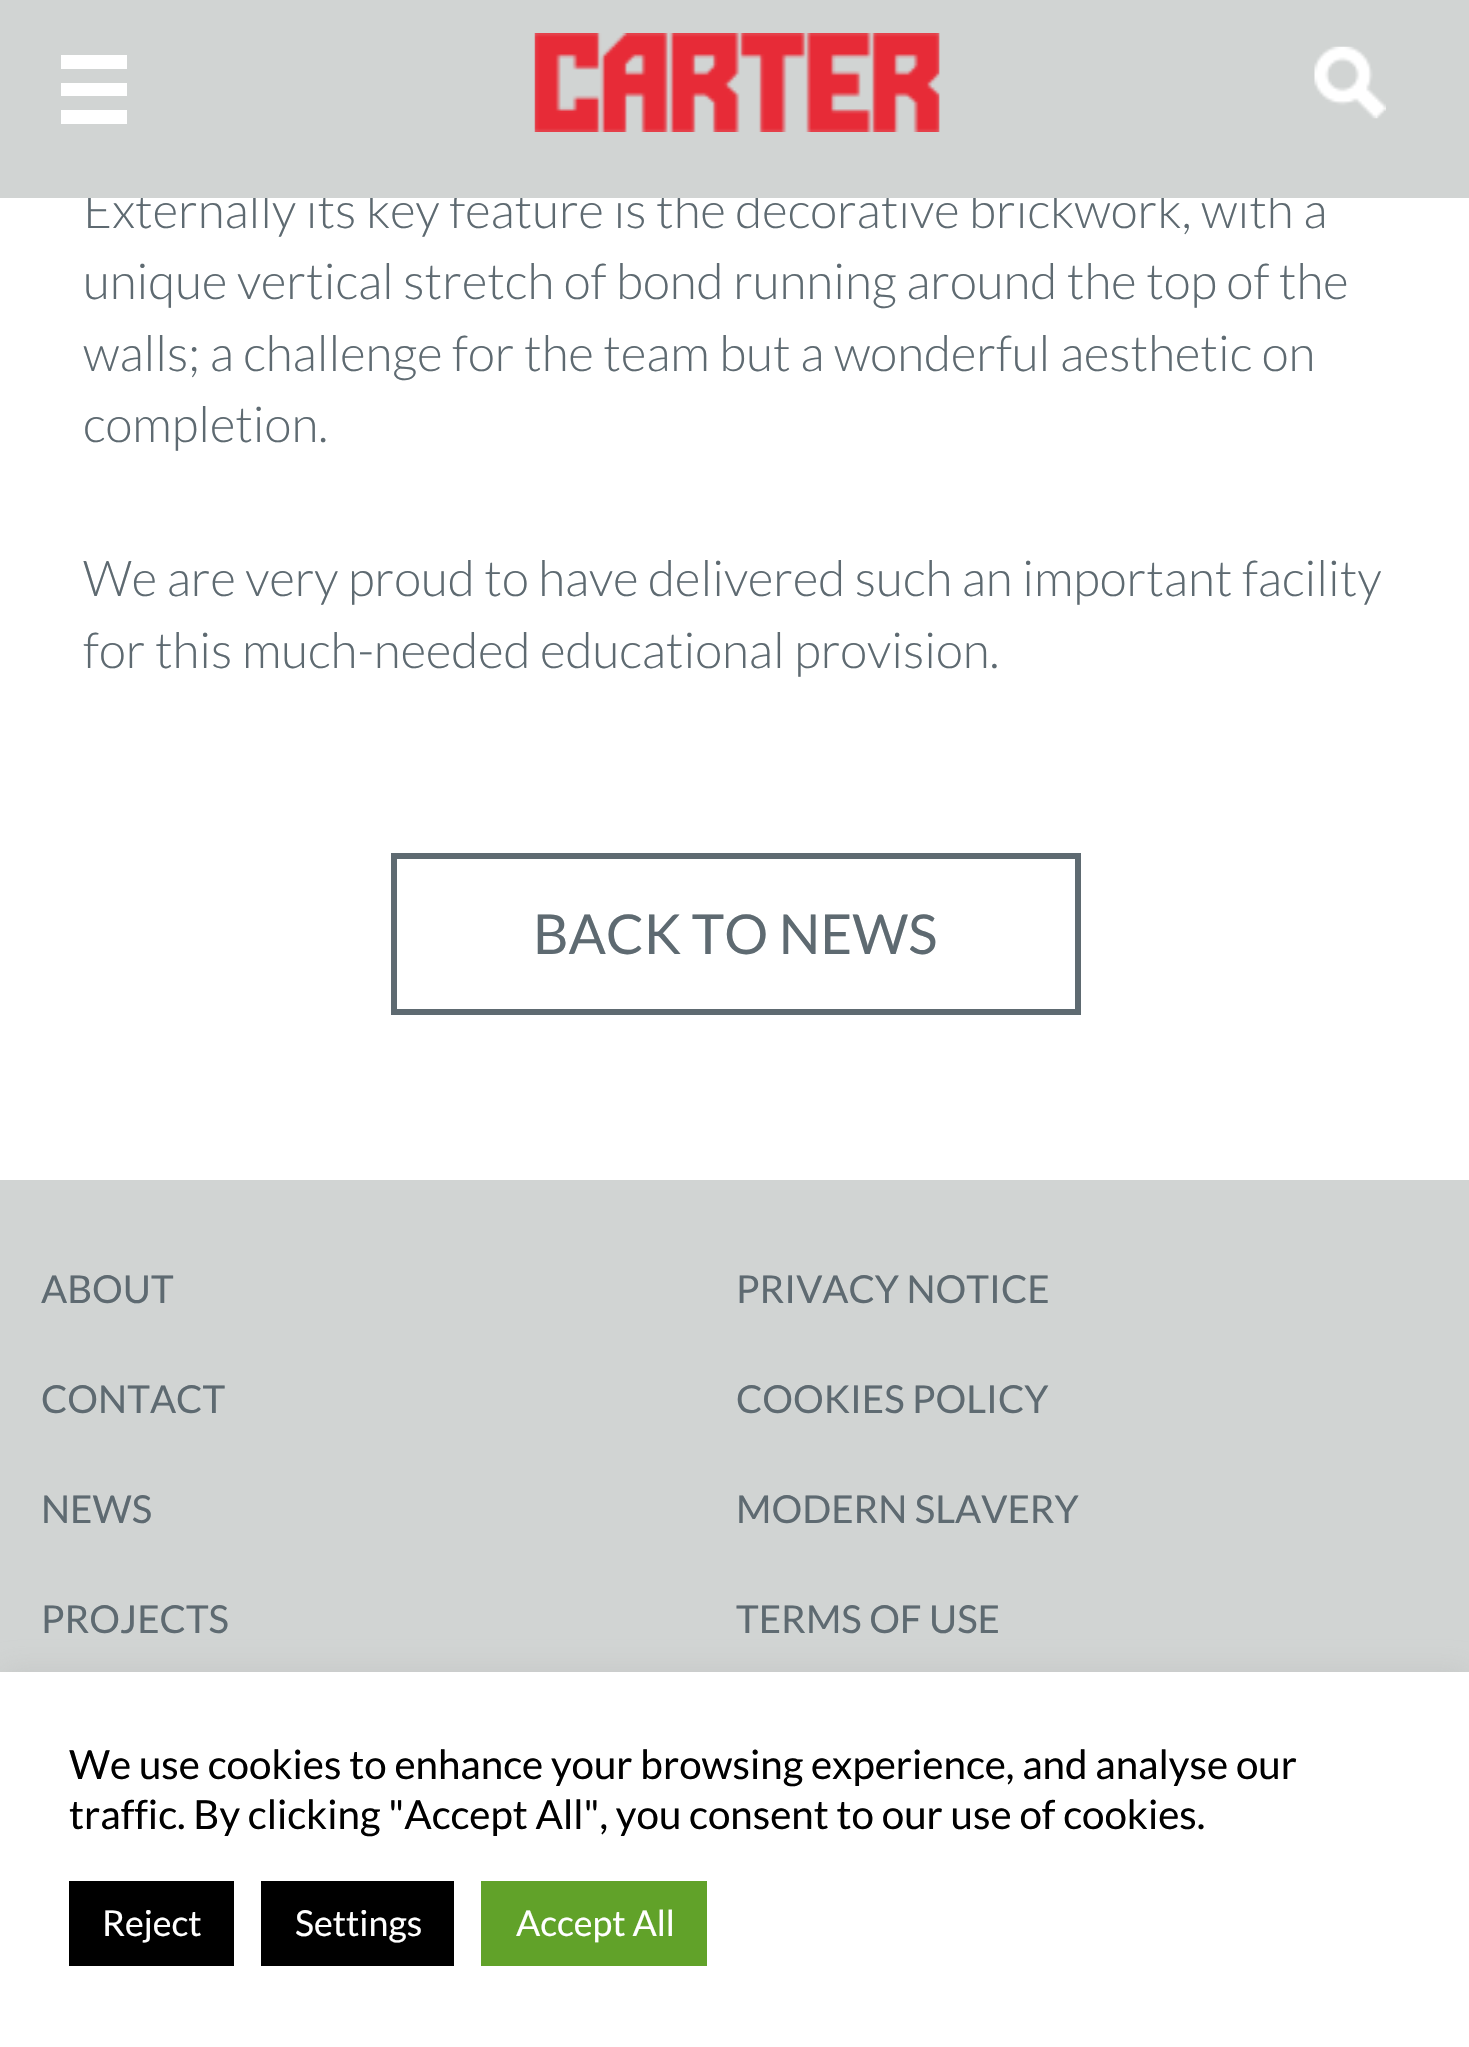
void draw(SkCanvas* canvas) {
    SkPaint paint;
    paint.setAntiAlias(true);
    canvas->clear(0xFFFFFFFF);
    SkFont font1(fontMgr->matchFamilyStyle("Lato", SkFontStyle(300, SkFontStyle::kNormal_Width, SkFontStyle::kUpright_Slant)), 49.5f);
    font1.setSubpixel(true);
    paint.setColor(0xFF5E6A71);
    canvas->drawString("Externally its key feature is the decorative brickwork, with a", 83, 228, font1, paint);
    paint.setColor(0xFFD1D4D3);
    canvas->drawRect(SkRect::MakeXYWH(0, 0, 1469, 198), paint);
    paint.setColor(0xFFFFFFFF);
    canvas->drawRect(SkRect::MakeXYWH(61, 83, 66, 13), paint);
    canvas->drawRect(SkRect::MakeXYWH(61, 55, 66, 14), paint);
    canvas->drawRect(SkRect::MakeXYWH(61, 110, 66, 14), paint);
    canvas->drawImageRect(SkImages::DeferredFromEncodedData(SkData::MakeFromFileName("img1.png")), SkRect::MakeXYWH(534, 33, 406, 99), SkSamplingOptions());
    canvas->drawImageRect(SkImages::DeferredFromEncodedData(SkData::MakeFromFileName("img2.png")), SkRect::MakeXYWH(1314, 46, 72, 73), SkSamplingOptions());
    paint.setColor(0xFF5E6A71);
    canvas->drawString("unique vertical stretch of bond running around the top of the", 83, 299, font1, paint);
    canvas->drawString("walls; a challenge for the team but a wonderful aesthetic on", 83, 371, font1, paint);
    canvas->drawString("completion.", 83, 442, font1, paint);
    canvas->drawString("We are very proud to have delivered such an important facility", 83, 596, font1, paint);
    canvas->drawString("for this much-needed educational provision.", 83, 668, font1, paint);
    paint.setStyle(SkPaint::kStroke_Style);
    paint.setStrokeWidth(6);
    canvas->drawRect(SkRect::MakeXYWH(394, 856, 684, 156), paint);
    SkFont font2(fontMgr->matchFamilyStyle("Lato", SkFontStyle::Normal()), 55);
    font2.setSubpixel(true);
    paint.setStyle(SkPaint::kFill_Style);
    canvas->drawString("BACK TO NEWS", 533, 954, font2, paint);
    paint.setColor(0xFFD1D4D3);
    canvas->drawRect(SkRect::MakeXYWH(0, 1180, 1469, 492), paint);
    SkFont font3(fontMgr->matchFamilyStyle("Lato", SkFontStyle::Normal()), 38.5f);
    font3.setSubpixel(true);
    paint.setColor(0xFF5E6A71);
    canvas->drawString("ABOUT", 41, 1303, font3, paint);
    canvas->drawString("CONTACT", 41, 1413, font3, paint);
    canvas->drawString("NEWS", 41, 1523, font3, paint);
    canvas->drawString("PROJECTS", 41, 1633, font3, paint);
    canvas->drawString("PRIVACY NOTICE", 736, 1303, font3, paint);
    canvas->drawString("COOKIES POLICY", 736, 1413, font3, paint);
    canvas->drawString("MODERN SLAVERY", 736, 1523, font3, paint);
    canvas->drawString("TERMS OF USE", 736, 1633, font3, paint);
    paint.setColor(0x4DACABAB);
    paint.setMaskFilter(SkMaskFilter::MakeBlur(kNormal_SkBlurStyle, 14));
    canvas->drawRect(SkRect::MakeXYWH(0, 1669, 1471, 377), paint);
    paint.setMaskFilter(nullptr);
    paint.setColor(0xFFFFFFFF);
    canvas->drawRect(SkRect::MakeXYWH(0, 1672, 1469, 375), paint);
    SkFont font4(fontMgr->matchFamilyStyle("Lato", SkFontStyle::Normal()), 40.3f);
    font4.setSubpixel(true);
    paint.setColor(0xFF000000);
    canvas->drawString("We use cookies to enhance your browsing experience, and analyse our", 69, 1779, font4, paint);
    canvas->drawString("traffic. By clicking \"Accept All\", you consent to our use of cookies.", 69, 1829, font4, paint);
    canvas->drawRect(SkRect::MakeXYWH(69, 1881, 165, 85), paint);
    SkFont font5(fontMgr->matchFamilyStyle("Lato", SkFontStyle::Normal()), 35.75f);
    font5.setSubpixel(true);
    paint.setColor(0xFFFFFFFF);
    canvas->drawString("Reject", 102, 1936, font5, paint);
    paint.setColor(0xFF000000);
    canvas->drawRect(SkRect::MakeXYWH(261, 1881, 193, 85), paint);
    paint.setColor(0xFFFFFFFF);
    canvas->drawString("Settings", 295, 1936, font5, paint);
    paint.setColor(0xFF61A229);
    canvas->drawRect(SkRect::MakeXYWH(481, 1881, 226, 85), paint);
    paint.setColor(0xFFFFFFFF);
    canvas->drawString("Accept All", 516, 1936, font5, paint);
}
